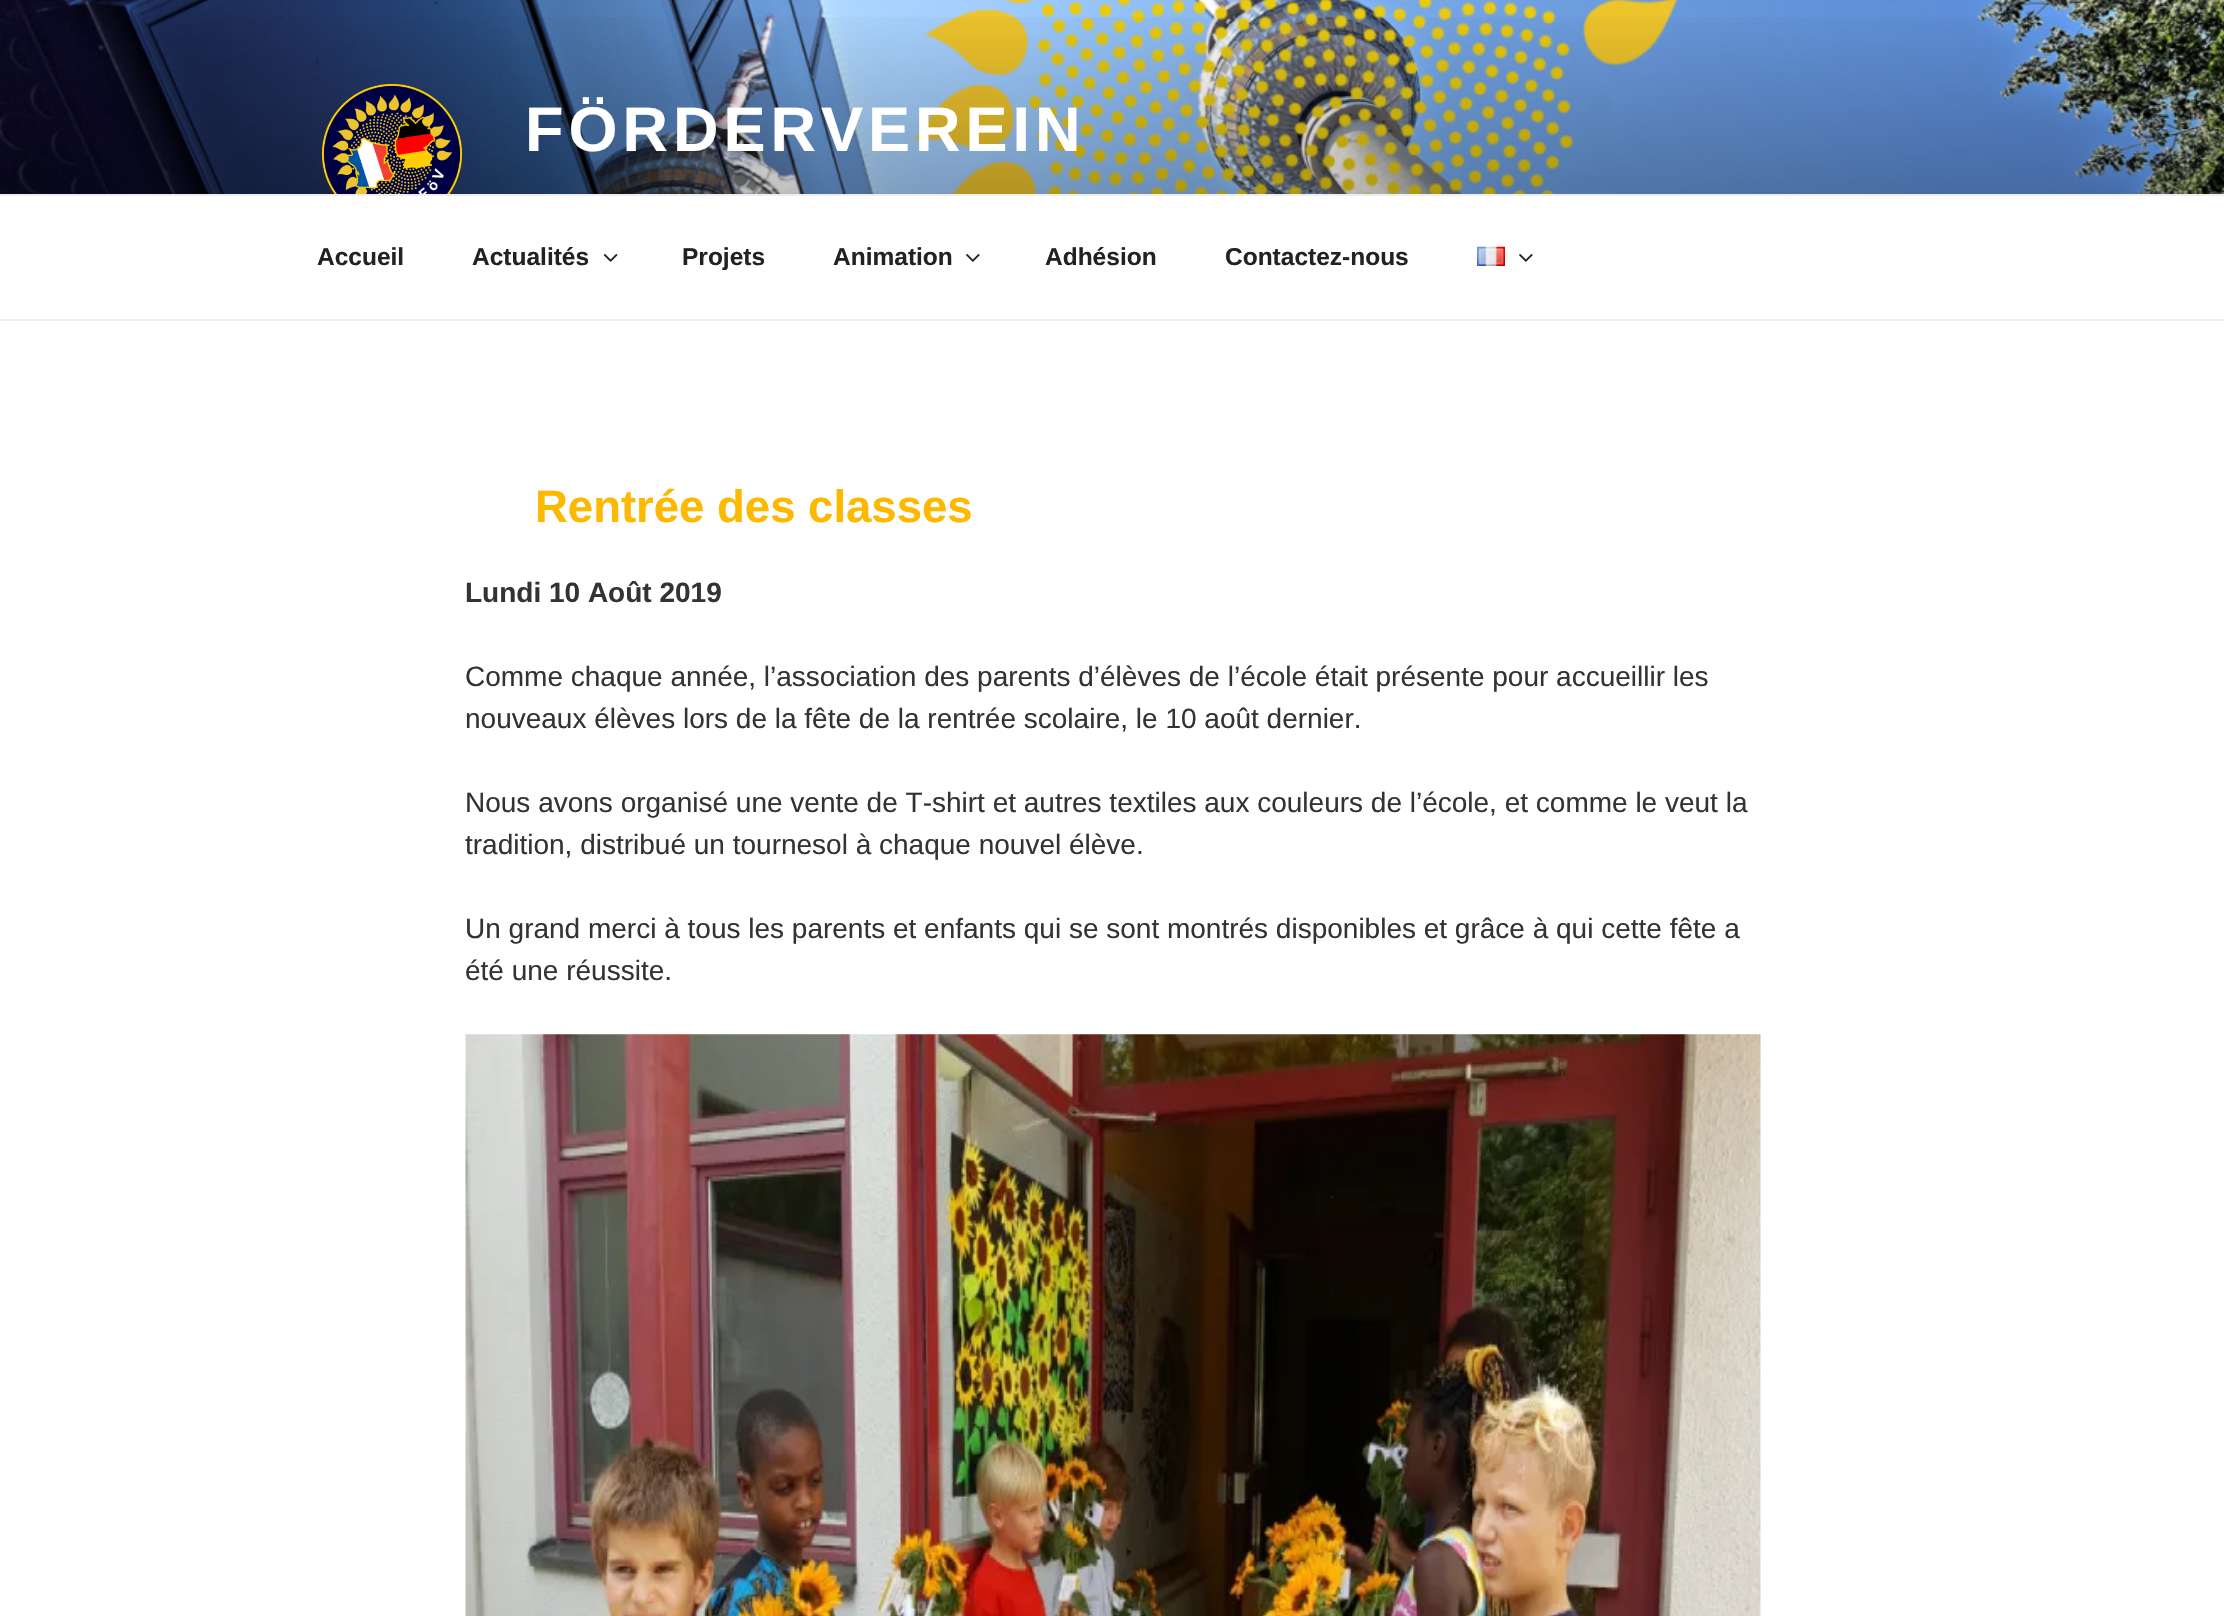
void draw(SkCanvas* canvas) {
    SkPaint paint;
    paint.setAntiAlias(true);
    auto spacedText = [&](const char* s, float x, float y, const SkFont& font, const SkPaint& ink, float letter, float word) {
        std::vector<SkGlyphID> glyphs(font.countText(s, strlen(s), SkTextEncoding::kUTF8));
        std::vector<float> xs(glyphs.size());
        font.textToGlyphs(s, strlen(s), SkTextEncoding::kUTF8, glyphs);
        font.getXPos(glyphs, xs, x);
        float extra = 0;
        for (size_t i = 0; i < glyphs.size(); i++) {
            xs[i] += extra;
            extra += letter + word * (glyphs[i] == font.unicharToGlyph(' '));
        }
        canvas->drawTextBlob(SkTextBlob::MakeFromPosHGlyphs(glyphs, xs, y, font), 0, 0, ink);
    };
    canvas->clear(0xFFFFFFFF);
    canvas->drawImageRect(SkImages::DeferredFromEncodedData(SkData::MakeFromFileName("img1.png")), SkRect::MakeXYWH(0, 0, 2224, 194), SkSamplingOptions());
    {
        const SkColor colors[] = {0x00000000, 0x4D000000, 0x4D000000};
        const float stops[] = {0, 0.75f, 1};
        const SkPoint ends[] = {{1112, 0}, {1112, 320}};
        paint.setShader(SkGradientShader::MakeLinear(ends, colors, stops, 3, SkTileMode::kClamp));
        paint.setAlpha(255);
    }
    canvas->drawRect(SkRect::MakeXYWH(0, 17, 2224, 177), paint);
    canvas->drawImageRect(SkImages::DeferredFromEncodedData(SkData::MakeFromFileName("img2.png")), SkRect::MakeXYWH(322, 84, 140, 110), SkSamplingOptions());
    SkFont font1(fontMgr->matchFamilyStyle("Liberation Sans", SkFontStyle::Bold()), 63);
    font1.setSubpixel(true);
    paint.setShader(nullptr);
    paint.setColor(0xFFFFFFFF);
    spacedText("FÖRDERVEREIN", 525, 151, font1, paint, 5, 0);
    paint.setColor(0xFFEEEEEE);
    canvas->drawRect(SkRect::MakeXYWH(0, 194, 2224, 2), paint);
    canvas->drawRect(SkRect::MakeXYWH(0, 319, 2224, 2), paint);
    SkFont font2(fontMgr->matchFamilyStyle("Liberation Sans", SkFontStyle::Bold()), 24.5f);
    font2.setSubpixel(true);
    paint.setColor(0xFF222222);
    canvas->drawString("Accueil", 317, 265, font2, paint);
    canvas->drawString("Actualités", 472, 265, font2, paint);
    canvas->drawImageRect(SkImages::DeferredFromEncodedData(SkData::MakeFromFileName("img3.png")), SkRect::MakeXYWH(603, 254, 15, 8), SkSamplingOptions());
    canvas->drawString("Projets", 682, 265, font2, paint);
    canvas->drawString("Animation", 833, 265, font2, paint);
    canvas->drawImageRect(SkImages::DeferredFromEncodedData(SkData::MakeFromFileName("img4.png")), SkRect::MakeXYWH(966, 254, 14, 8), SkSamplingOptions());
    canvas->drawString("Adhésion", 1045, 265, font2, paint);
    canvas->drawString("Contactez-nous", 1225, 265, font2, paint);
    canvas->drawImageRect(SkImages::DeferredFromEncodedData(SkData::MakeFromFileName("img5.png")), SkRect::MakeXYWH(1477, 246, 28, 20), SkSamplingOptions());
    canvas->drawImageRect(SkImages::DeferredFromEncodedData(SkData::MakeFromFileName("img4.png")), SkRect::MakeXYWH(1519, 254, 14, 8), SkSamplingOptions());
    SkFont font3(fontMgr->matchFamilyStyle("Liberation Sans", SkFontStyle::Bold()), 45.5f);
    font3.setSubpixel(true);
    paint.setColor(0xFFFCB900);
    canvas->drawString("Rentrée des classes", 535, 522, font3, paint);
    SkFont font4(fontMgr->matchFamilyStyle("Liberation Sans", SkFontStyle::Bold()), 28);
    font4.setSubpixel(true);
    paint.setColor(0xFF333333);
    canvas->drawString("Lundi 10 Août 2019", 465, 602, font4, paint);
    SkFont font5(fontMgr->matchFamilyStyle("Liberation Sans", SkFontStyle::Normal()), 28);
    font5.setSubpixel(true);
    canvas->drawString("Comme chaque année, l’association des parents d’élèves de l’école était présente pour accueillir les", 465, 686, font5, paint);
    canvas->drawString("nouveaux élèves lors de la fête de la rentrée scolaire, le 10 août dernier.", 465, 728, font5, paint);
    canvas->drawString("Nous avons organisé une vente de T-shirt et autres textiles aux couleurs de l’école, et comme le veut la", 465, 812, font5, paint);
    canvas->drawString("tradition, distribué un tournesol à chaque nouvel élève.", 465, 854, font5, paint);
    canvas->drawString("Un grand merci à tous les parents et enfants qui se sont montrés disponibles et grâce à qui cette fête a", 465, 938, font5, paint);
    canvas->drawString("été une réussite.", 465, 980, font5, paint);
    canvas->drawImageRect(SkImages::DeferredFromEncodedData(SkData::MakeFromFileName("img6.png")), SkRect::MakeXYWH(465, 1034, 1296, 582), SkSamplingOptions());
}
